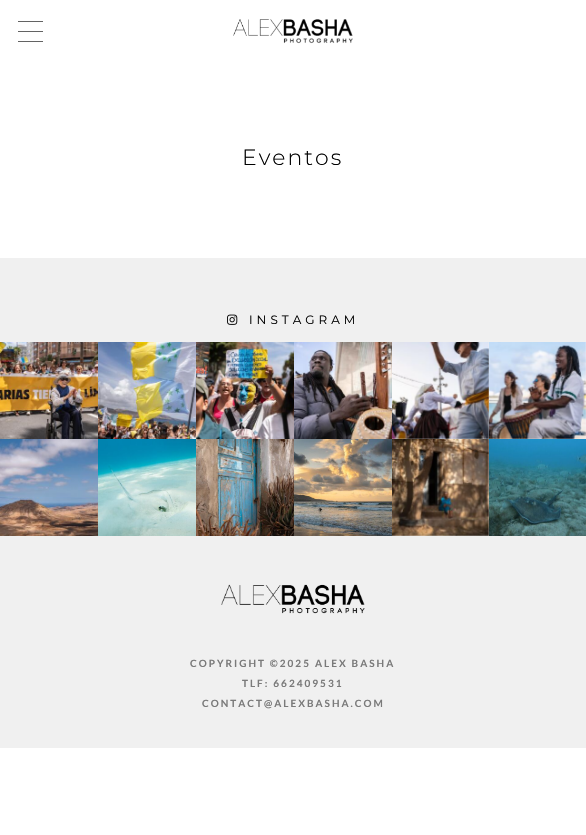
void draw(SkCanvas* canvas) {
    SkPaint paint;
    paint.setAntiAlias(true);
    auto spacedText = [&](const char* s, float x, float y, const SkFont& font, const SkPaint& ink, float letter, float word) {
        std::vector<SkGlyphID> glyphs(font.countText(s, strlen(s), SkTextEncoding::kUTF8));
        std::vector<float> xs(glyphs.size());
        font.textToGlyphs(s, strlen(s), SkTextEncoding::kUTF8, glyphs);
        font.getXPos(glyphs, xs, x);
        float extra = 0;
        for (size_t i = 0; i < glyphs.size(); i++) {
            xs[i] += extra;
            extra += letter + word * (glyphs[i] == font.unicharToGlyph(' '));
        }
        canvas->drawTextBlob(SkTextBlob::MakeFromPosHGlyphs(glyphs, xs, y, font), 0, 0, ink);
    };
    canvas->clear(0xFFFFFFFF);
    paint.setColor(0xFF636363);
    canvas->drawRect(SkRect::MakeXYWH(18, 31, 25, 1), paint);
    canvas->drawRect(SkRect::MakeXYWH(18, 21, 25, 1), paint);
    canvas->drawRect(SkRect::MakeXYWH(18, 41, 25, 1), paint);
    canvas->drawImageRect(SkImages::DeferredFromEncodedData(SkData::MakeFromFileName("img1.png")), SkRect::MakeXYWH(233, 19, 120, 25), SkSamplingOptions());
    SkFont font1(fontMgr->matchFamilyStyle("Montserrat", SkFontStyle(300, SkFontStyle::kNormal_Width, SkFontStyle::kUpright_Slant)), 22);
    font1.setSubpixel(true);
    paint.setColor(0xFF000000);
    spacedText("Eventos", 242, 165, font1, paint, 2, 0);
    paint.setColor(0xFFF0F0F0);
    canvas->drawRect(SkRect::MakeXYWH(0, 258, 586, 490), paint);
    canvas->drawImageRect(SkImages::DeferredFromEncodedData(SkData::MakeFromFileName("img2.png")), SkRect::MakeXYWH(227, 314, 11, 11), SkSamplingOptions());
    SkFont font2(fontMgr->matchFamilyStyle("Montserrat", SkFontStyle::Normal()), 12);
    font2.setSubpixel(true);
    paint.setColor(0xFF000000);
    spacedText("INSTAGRAM", 249, 324, font2, paint, 4, 0);
    canvas->drawImageRect(SkImages::DeferredFromEncodedData(SkData::MakeFromFileName("img3.png")), SkRect::MakeXYWH(0, 342, 98, 97), SkSamplingOptions());
    canvas->drawImageRect(SkImages::DeferredFromEncodedData(SkData::MakeFromFileName("img4.png")), SkRect::MakeXYWH(98, 342, 98, 97), SkSamplingOptions());
    canvas->drawImageRect(SkImages::DeferredFromEncodedData(SkData::MakeFromFileName("img5.png")), SkRect::MakeXYWH(196, 342, 98, 97), SkSamplingOptions());
    canvas->drawImageRect(SkImages::DeferredFromEncodedData(SkData::MakeFromFileName("img6.png")), SkRect::MakeXYWH(294, 342, 98, 97), SkSamplingOptions());
    canvas->drawImageRect(SkImages::DeferredFromEncodedData(SkData::MakeFromFileName("img7.png")), SkRect::MakeXYWH(392, 342, 97, 97), SkSamplingOptions());
    canvas->drawImageRect(SkImages::DeferredFromEncodedData(SkData::MakeFromFileName("img8.png")), SkRect::MakeXYWH(489, 342, 97, 97), SkSamplingOptions());
    canvas->drawImageRect(SkImages::DeferredFromEncodedData(SkData::MakeFromFileName("img9.png")), SkRect::MakeXYWH(0, 439, 98, 97), SkSamplingOptions());
    canvas->drawImageRect(SkImages::DeferredFromEncodedData(SkData::MakeFromFileName("img10.png")), SkRect::MakeXYWH(98, 439, 98, 97), SkSamplingOptions());
    canvas->drawImageRect(SkImages::DeferredFromEncodedData(SkData::MakeFromFileName("img11.png")), SkRect::MakeXYWH(196, 439, 98, 97), SkSamplingOptions());
    canvas->drawImageRect(SkImages::DeferredFromEncodedData(SkData::MakeFromFileName("img12.png")), SkRect::MakeXYWH(294, 439, 98, 97), SkSamplingOptions());
    canvas->drawImageRect(SkImages::DeferredFromEncodedData(SkData::MakeFromFileName("img13.png")), SkRect::MakeXYWH(392, 439, 97, 97), SkSamplingOptions());
    canvas->drawImageRect(SkImages::DeferredFromEncodedData(SkData::MakeFromFileName("img14.png")), SkRect::MakeXYWH(489, 439, 97, 97), SkSamplingOptions());
    canvas->drawImageRect(SkImages::DeferredFromEncodedData(SkData::MakeFromFileName("img15.png")), SkRect::MakeXYWH(221, 584, 144, 30), SkSamplingOptions());
    SkFont font3(fontMgr->matchFamilyStyle("Lato", SkFontStyle::Bold()), 10);
    font3.setSubpixel(true);
    paint.setColor(0xFF7A7A7A);
    spacedText("COPYRIGHT ©2025 ALEX BASHA", 190, 667, font3, paint, 2, 0);
    spacedText("TLF: 662409531", 242, 687, font3, paint, 2, 0);
    spacedText("CONTACT@ALEXBASHA.COM", 202, 707, font3, paint, 2, 0);
}
